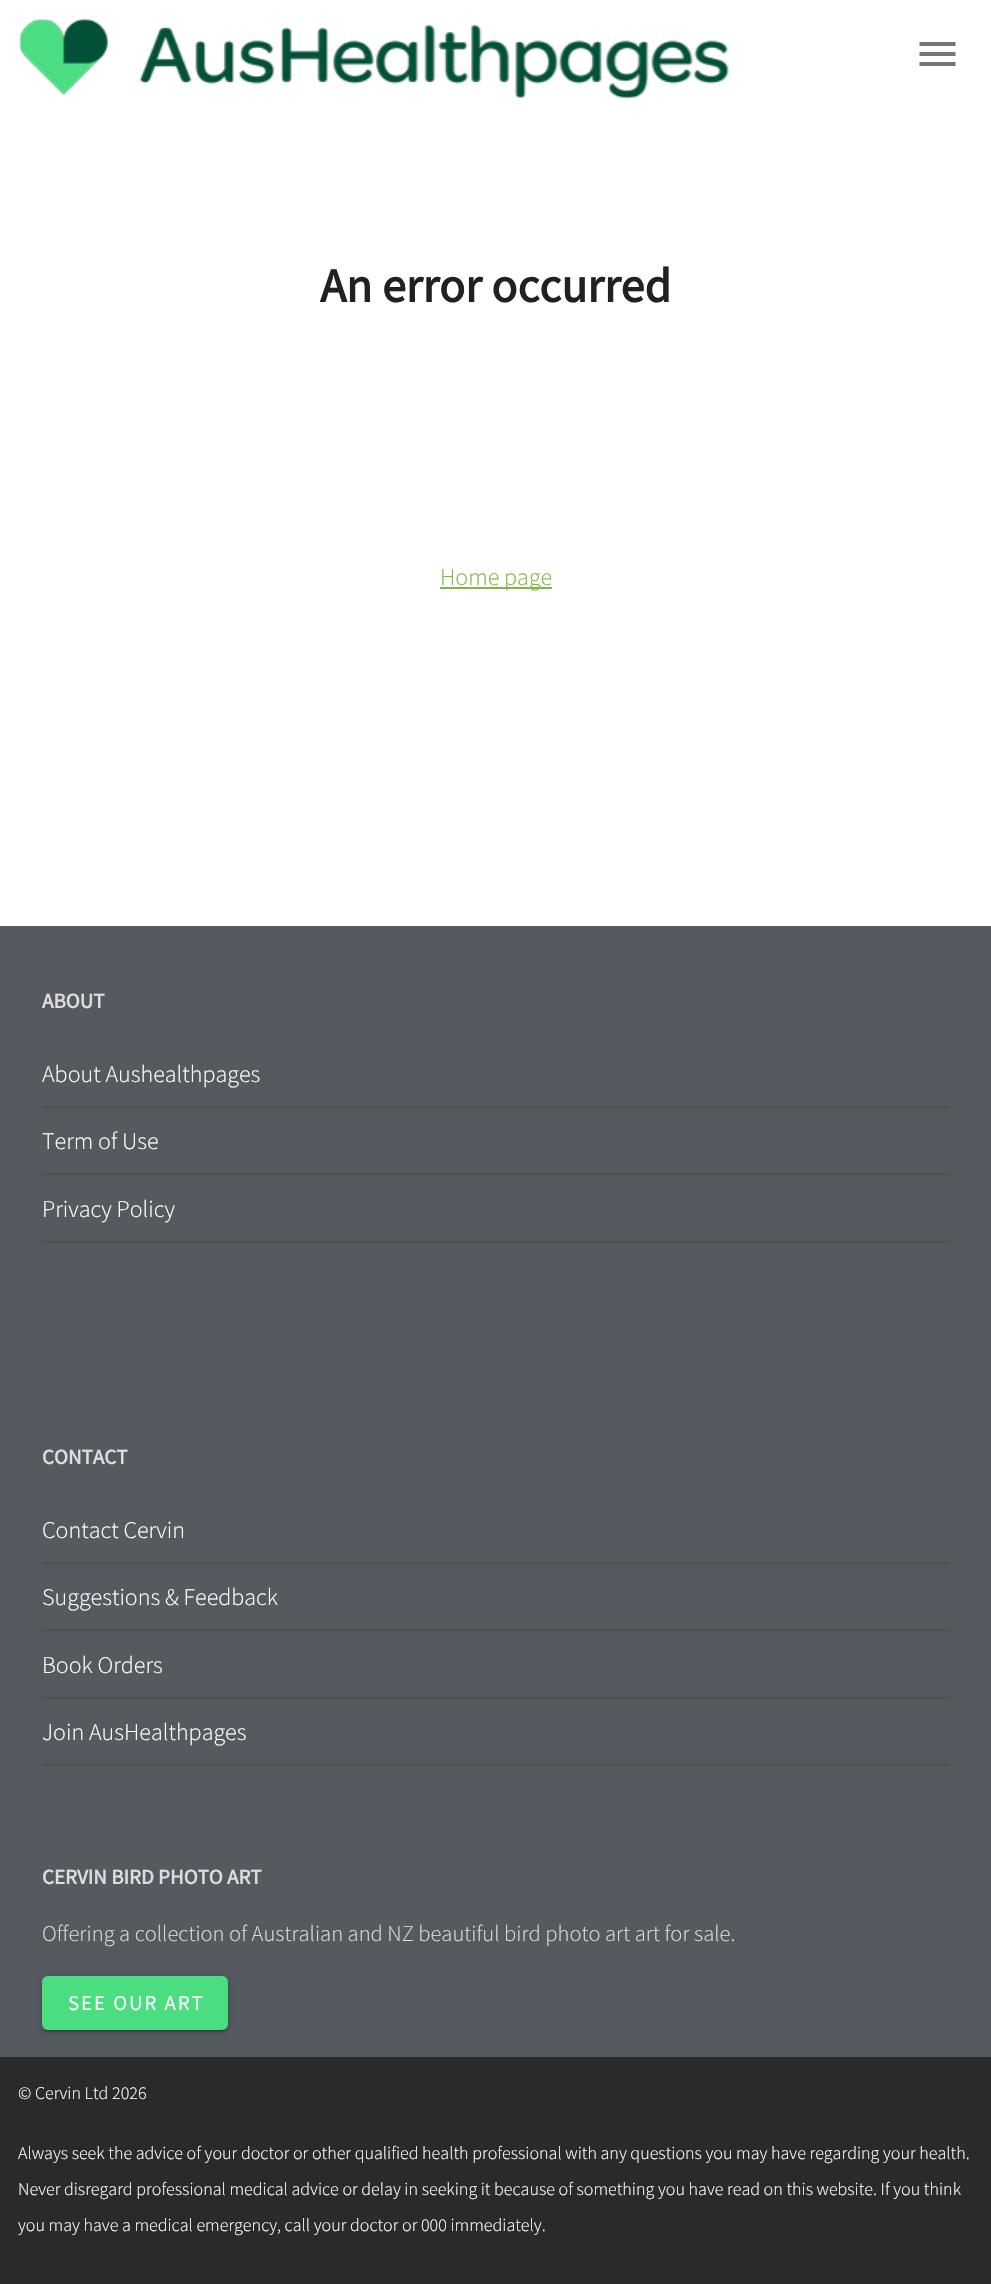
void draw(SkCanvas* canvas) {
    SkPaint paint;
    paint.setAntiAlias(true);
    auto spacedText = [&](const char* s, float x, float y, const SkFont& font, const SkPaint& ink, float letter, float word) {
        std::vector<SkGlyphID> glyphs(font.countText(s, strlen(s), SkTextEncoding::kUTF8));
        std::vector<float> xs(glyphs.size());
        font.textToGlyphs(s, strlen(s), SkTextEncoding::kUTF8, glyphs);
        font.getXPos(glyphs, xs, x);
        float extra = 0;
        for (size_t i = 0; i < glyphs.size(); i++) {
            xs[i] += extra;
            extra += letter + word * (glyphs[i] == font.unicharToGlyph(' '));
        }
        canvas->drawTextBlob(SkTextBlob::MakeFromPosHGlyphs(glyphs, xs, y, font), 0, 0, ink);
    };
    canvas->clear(0xFFFFFFFF);
    canvas->drawImageRect(SkImages::DeferredFromEncodedData(SkData::MakeFromFileName("img1.png")), SkRect::MakeXYWH(19, 19, 710, 80), SkSamplingOptions());
    paint.setColor(0xFF757575);
    canvas->drawPath(SkPathBuilder().moveTo(919.5f, 42).lineTo(955.5f, 42).lineTo(955.5f, 46).lineTo(919.5f, 46).close().moveTo(919.5f, 52).lineTo(955.5f, 52).lineTo(955.5f, 56).lineTo(919.5f, 56).close().moveTo(919.5f, 62).lineTo(955.5f, 62).lineTo(955.5f, 66).lineTo(919.5f, 66).close().detach(), paint);
    SkFont font1(fontMgr->matchFamilyStyle("Source Sans Pro", SkFontStyle::Bold()), 48);
    font1.setSubpixel(true);
    paint.setColor(0xFF212121);
    canvas->drawString("An error occurred", 320, 302, font1, paint);
    paint.setColor(0xFF82B541);
    canvas->drawRect(SkRect::MakeXYWH(440, 587, 112, 2), paint);
    SkFont font2(fontMgr->matchFamilyStyle("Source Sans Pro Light", SkFontStyle(300, SkFontStyle::kNormal_Width, SkFontStyle::kUpright_Slant)), 24);
    font2.setSubpixel(true);
    canvas->drawString("Home page", 440, 585, font2, paint);
    paint.setColor(0xFF555A60);
    canvas->drawRect(SkRect::MakeXYWH(0, 926, 991, 1131), paint);
    SkFont font3(fontMgr->matchFamilyStyle("Source Sans Pro", SkFontStyle::Bold()), 21);
    font3.setSubpixel(true);
    paint.setColor(0xFFDDDDDD);
    canvas->drawString("ABOUT", 42, 1008, font3, paint);
    paint.setColor(0xFF505152);
    canvas->drawRect(SkRect::MakeXYWH(42, 1106, 908, 2), paint);
    paint.setColor(0xFFFFFFFF);
    canvas->drawString("About Aushealthpages", 42, 1082, font2, paint);
    paint.setColor(0xFF505152);
    canvas->drawRect(SkRect::MakeXYWH(42, 1173, 908, 2), paint);
    paint.setColor(0xFFFFFFFF);
    canvas->drawString("Term of Use", 42, 1149, font2, paint);
    paint.setColor(0xFF505152);
    canvas->drawRect(SkRect::MakeXYWH(42, 1241, 908, 2), paint);
    paint.setColor(0xFFFFFFFF);
    canvas->drawString("Privacy Policy", 42, 1217, font2, paint);
    paint.setColor(0xFFDDDDDD);
    canvas->drawString("CONTACT", 42, 1464, font3, paint);
    paint.setColor(0xFF505152);
    canvas->drawRect(SkRect::MakeXYWH(42, 1562, 908, 2), paint);
    paint.setColor(0xFFFFFFFF);
    canvas->drawString("Contact Cervin", 42, 1538, font2, paint);
    paint.setColor(0xFF505152);
    canvas->drawRect(SkRect::MakeXYWH(42, 1629, 908, 2), paint);
    paint.setColor(0xFFFFFFFF);
    canvas->drawString("Suggestions & Feedback", 42, 1605, font2, paint);
    paint.setColor(0xFF505152);
    canvas->drawRect(SkRect::MakeXYWH(42, 1697, 908, 2), paint);
    paint.setColor(0xFFFFFFFF);
    canvas->drawString("Book Orders", 42, 1673, font2, paint);
    paint.setColor(0xFF505152);
    canvas->drawRect(SkRect::MakeXYWH(42, 1764, 908, 2), paint);
    paint.setColor(0xFFFFFFFF);
    canvas->drawString("Join AusHealthpages", 42, 1740, font2, paint);
    paint.setColor(0xFFDDDDDD);
    canvas->drawString("CERVIN BIRD PHOTO ART", 42, 1884, font3, paint);
    SkFont font4(fontMgr->matchFamilyStyle("Source Sans Pro Light", SkFontStyle(300, SkFontStyle::kNormal_Width, SkFontStyle::kUpright_Slant)), 22.5f);
    font4.setSubpixel(true);
    canvas->drawString("Offering a collection of Australian and NZ beautiful bird photo art art for sale.", 42, 1941, font4, paint);
    paint.setColor(0x1F000000);
    paint.setMaskFilter(SkMaskFilter::MakeBlur(kNormal_SkBlurStyle, 4));
    canvas->drawRoundRect(SkRect::MakeXYWH(42, 1977, 186, 54), 6, 6, paint);
    paint.setMaskFilter(nullptr);
    paint.setColor(0x24000000);
    paint.setMaskFilter(SkMaskFilter::MakeBlur(kNormal_SkBlurStyle, 1.5f));
    canvas->drawRoundRect(SkRect::MakeXYWH(42, 1979, 186, 54), 6, 6, paint);
    paint.setMaskFilter(nullptr);
    paint.setColor(0x33000000);
    paint.setMaskFilter(SkMaskFilter::MakeBlur(kNormal_SkBlurStyle, 1));
    canvas->drawRoundRect(SkRect::MakeXYWH(45, 1983, 180, 48), 3, 3, paint);
    paint.setMaskFilter(nullptr);
    paint.setColor(0xFF4ADE81);
    canvas->drawRoundRect(SkRect::MakeXYWH(42, 1976, 186, 54), 6, 6, paint);
    SkFont font5(fontMgr->matchFamilyStyle("Source Sans Pro", SkFontStyle::Normal()), 21);
    font5.setSubpixel(true);
    paint.setColor(0xFFFFFFFF);
    spacedText("SEE OUR ART", 68, 2010, font5, paint, 1.9f, 0);
    paint.setColor(0xFF282A2B);
    canvas->drawRect(SkRect::MakeXYWH(0, 2057, 991, 227), paint);
    SkFont font6(fontMgr->matchFamilyStyle("Source Sans Pro Light", SkFontStyle(300, SkFontStyle::kNormal_Width, SkFontStyle::kUpright_Slant)), 18);
    font6.setSubpixel(true);
    paint.setColor(0xFFFFFFFF);
    canvas->drawString("© Cervin Ltd 2026", 18, 2099, font6, paint);
    canvas->drawString("Always seek the advice of your doctor or other qualified health professional with any questions you may have regarding your health.", 18, 2159, font6, paint);
    canvas->drawString("Never disregard professional medical advice or delay in seeking it because of something you have read on this website. If you think", 18, 2195, font6, paint);
    canvas->drawString("you may have a medical emergency, call your doctor or 000 immediately.", 18, 2231, font6, paint);
}
